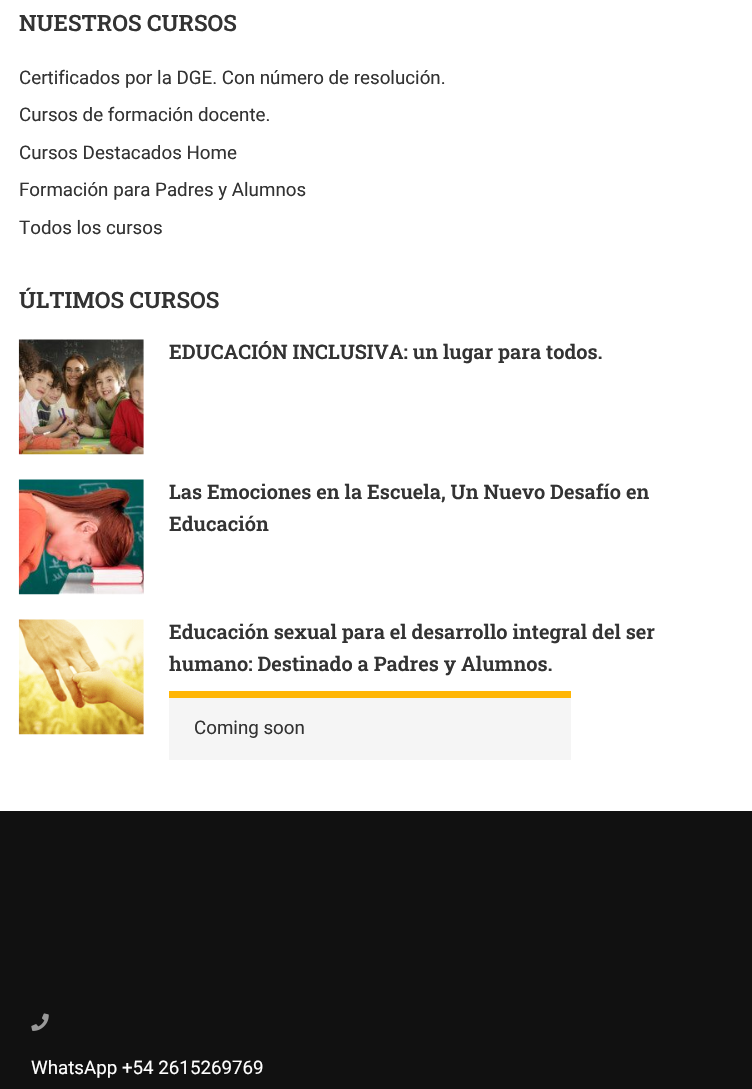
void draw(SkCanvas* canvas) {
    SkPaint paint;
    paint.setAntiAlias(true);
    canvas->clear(0xFFFFFFFF);
    SkFont font1(fontMgr->matchFamilyStyle("Roboto Slab", SkFontStyle(600, SkFontStyle::kNormal_Width, SkFontStyle::kUpright_Slant)), 22.5f);
    font1.setSubpixel(true);
    paint.setColor(0xFF333333);
    canvas->drawString("NUESTROS CURSOS", 19, 31, font1, paint);
    SkFont font2(fontMgr->matchFamilyStyle("Roboto", SkFontStyle::Normal()), 18.75f);
    font2.setSubpixel(true);
    canvas->drawString("Certificados por la DGE. Con número de resolución.", 19, 84, font2, paint);
    canvas->drawString("Cursos de formación docente.", 19, 121, font2, paint);
    canvas->drawString("Cursos Destacados Home", 19, 159, font2, paint);
    canvas->drawString("Formación para Padres y Alumnos", 19, 196, font2, paint);
    canvas->drawString("Todos los cursos", 19, 234, font2, paint);
    canvas->drawString("ÚLTIMOS CURSOS", 19, 308, font1, paint);
    canvas->drawImageRect(SkImages::DeferredFromEncodedData(SkData::MakeFromFileName("img1.png")), SkRect::MakeXYWH(18, 339, 126, 116), SkSamplingOptions());
    SkFont font3(fontMgr->matchFamilyStyle("Roboto Slab", SkFontStyle(600, SkFontStyle::kNormal_Width, SkFontStyle::kUpright_Slant)), 20);
    font3.setSubpixel(true);
    canvas->drawString("EDUCACIÓN INCLUSIVA: un lugar para todos.", 169, 359, font3, paint);
    canvas->drawImageRect(SkImages::DeferredFromEncodedData(SkData::MakeFromFileName("img2.png")), SkRect::MakeXYWH(18, 479, 126, 116), SkSamplingOptions());
    canvas->drawString("Las Emociones en la Escuela, Un Nuevo Desafío en", 169, 499, font3, paint);
    canvas->drawString("Educación", 169, 531, font3, paint);
    canvas->drawImageRect(SkImages::DeferredFromEncodedData(SkData::MakeFromFileName("img3.png")), SkRect::MakeXYWH(18, 619, 126, 116), SkSamplingOptions());
    canvas->drawString("Educación sexual para el desarrollo integral del ser", 169, 639, font3, paint);
    canvas->drawString("humano: Destinado a Padres y Alumnos.", 169, 671, font3, paint);
    paint.setColor(0xFFF5F5F5);
    canvas->drawRect(SkRect::MakeXYWH(169, 698, 402, 62), paint);
    paint.setColor(0xFFFFB606);
    canvas->drawRect(SkRect::MakeXYWH(169, 691, 402, 7), paint);
    paint.setColor(0xFF333333);
    canvas->drawString("Coming soon", 194, 734, font2, paint);
    paint.setColor(0xFF111111);
    canvas->drawRect(SkRect::MakeXYWH(0, 811, 752, 278), paint);
    canvas->drawImageRect(SkImages::DeferredFromEncodedData(SkData::MakeFromFileName("img4.png")), SkRect::MakeXYWH(31, 1013, 18, 18), SkSamplingOptions());
    paint.setColor(0xFFFFFFFF);
    canvas->drawString("WhatsApp +54 2615269769", 31, 1074, font2, paint);
}
